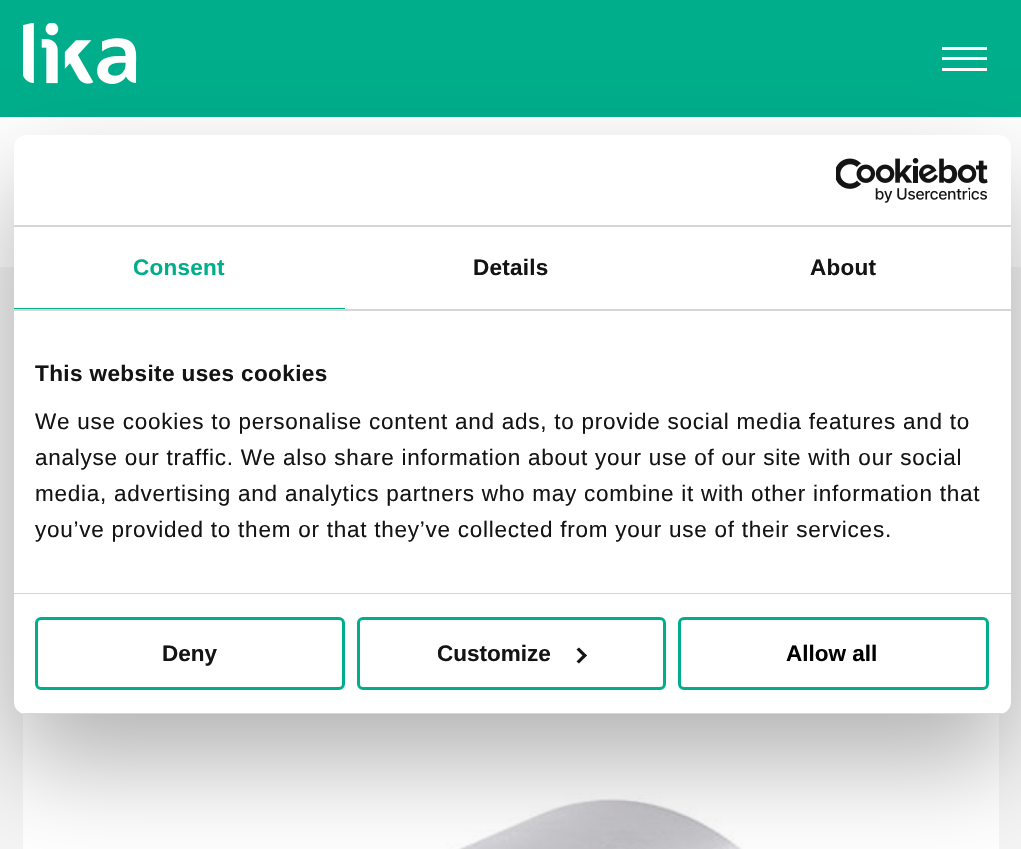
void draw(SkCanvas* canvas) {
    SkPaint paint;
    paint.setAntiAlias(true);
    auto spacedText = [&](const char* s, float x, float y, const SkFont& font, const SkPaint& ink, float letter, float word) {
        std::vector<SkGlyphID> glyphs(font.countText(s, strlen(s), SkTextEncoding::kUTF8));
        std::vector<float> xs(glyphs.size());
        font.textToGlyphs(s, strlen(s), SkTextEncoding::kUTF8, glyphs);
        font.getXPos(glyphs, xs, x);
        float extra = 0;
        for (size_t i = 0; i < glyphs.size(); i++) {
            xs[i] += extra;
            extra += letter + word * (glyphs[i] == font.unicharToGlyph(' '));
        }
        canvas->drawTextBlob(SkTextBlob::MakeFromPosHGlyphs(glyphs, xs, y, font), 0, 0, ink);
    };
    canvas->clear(0xFFFFFFFF);
    paint.setColor(0xFF00AE8C);
    canvas->drawRect(SkRect::MakeXYWH(0, 0, 1021, 117), paint);
    canvas->drawImageRect(SkImages::DeferredFromEncodedData(SkData::MakeFromFileName("img1.png")), SkRect::MakeXYWH(23, 23, 114, 61), SkSamplingOptions());
    paint.setColor(0xFFFFFFFF);
    canvas->drawRect(SkRect::MakeXYWH(942, 68, 45, 3), paint);
    canvas->drawRect(SkRect::MakeXYWH(942, 57, 45, 3), paint);
    canvas->drawRect(SkRect::MakeXYWH(942, 47, 45, 3), paint);
    paint.setColor(0xFFF5F5F5);
    canvas->drawRect(SkRect::MakeXYWH(0, 267, 1021, 582), paint);
    paint.setColor(0xFFFFFFFF);
    canvas->drawRect(SkRect::MakeXYWH(23, 713, 976, 136), paint);
    canvas->drawImageRect(SkImages::DeferredFromEncodedData(SkData::MakeFromFileName("img2.png")), SkRect::MakeXYWH(62, 714, 899, 135), SkSamplingOptions());
    paint.setColor(0x4D000000);
    paint.setMaskFilter(SkMaskFilter::MakeBlur(kNormal_SkBlurStyle, 51));
    canvas->drawRoundRect(SkRect::MakeXYWH(14, 183, 997, 579), 12, 12, paint);
    paint.setMaskFilter(nullptr);
    paint.setColor(0xFFFFFFFF);
    canvas->drawRoundRect(SkRect::MakeXYWH(14, 135, 997, 579), 12, 12, paint);
    paint.setColor(0xFFD6D6D6);
    canvas->drawRect(SkRect::MakeXYWH(14, 225, 997, 2), paint);
    canvas->drawImageRect(SkImages::DeferredFromEncodedData(SkData::MakeFromFileName("img3.png")), SkRect::MakeXYWH(836, 158, 152, 45), SkSamplingOptions());
    canvas->drawRect(SkRect::MakeXYWH(14, 309, 997, 2), paint);
    paint.setColor(0xFF00AE8C);
    canvas->drawRect(SkRect::MakeXYWH(14, 308, 331, 1), paint);
    SkFont font1(fontMgr->matchFamilyStyle("Liberation Sans", SkFontStyle::Bold()), 22.5f);
    font1.setSubpixel(true);
    spacedText("Consent", 133, 275, font1, paint, 0.25f, 0);
    paint.setColor(0xFF141414);
    spacedText("Details", 473, 275, font1, paint, 0.25f, 0);
    spacedText("About", 810, 275, font1, paint, 0.25f, 0);
    paint.setColor(0xFFD6D6D6);
    canvas->drawRect(SkRect::MakeXYWH(14, 593, 997, 1), paint);
    paint.setColor(0xFF141414);
    spacedText("This website uses cookies", 35, 381, font1, paint, 0.4f, 0);
    SkFont font2(fontMgr->matchFamilyStyle("Liberation Sans", SkFontStyle::Normal()), 22.5f);
    font2.setSubpixel(true);
    spacedText("We use cookies to personalise content and ads, to provide social media features and to", 35, 429, font2, paint, 0.75f, 0);
    spacedText("analyse our traffic. We also share information about your use of our site with our social", 35, 465, font2, paint, 0.75f, 0);
    spacedText("media, advertising and analytics partners who may combine it with other information that", 35, 501, font2, paint, 0.75f, 0);
    spacedText("you’ve provided to them or that they’ve collected from your use of their services.", 35, 537, font2, paint, 0.75f, 0);
    canvas->save();
    canvas->clipPath(SkPathBuilder().moveTo(26, 135).lineTo(999, 135).cubicTo(1005.5f, 135, 1011, 140.5f, 1011, 147).lineTo(1011, 702).cubicTo(1011, 708.5f, 1005.5f, 714, 999, 714).lineTo(26, 714).cubicTo(19.5f, 714, 14, 708.5f, 14, 702).lineTo(14, 147).cubicTo(14, 140.5f, 19.5f, 135, 26, 135).close().detach(), true);
    paint.setColor(0xFFD6D6D6);
    canvas->drawRect(SkRect::MakeXYWH(14, 713, 997, 1), paint);
    canvas->restore();
    paint.setStyle(SkPaint::kStroke_Style);
    paint.setStrokeWidth(3);
    paint.setColor(0xFF00AE8C);
    canvas->drawRoundRect(SkRect::MakeXYWH(36.5f, 618.5f, 307, 70), 4.5f, 4.5f, paint);
    paint.setStyle(SkPaint::kFill_Style);
    paint.setColor(0xFF141414);
    canvas->drawString("Deny", 162, 661, font1, paint);
    paint.setStyle(SkPaint::kStroke_Style);
    paint.setColor(0xFF00AE8C);
    canvas->drawRoundRect(SkRect::MakeXYWH(358.5f, 618.5f, 306, 70), 4.5f, 4.5f, paint);
    paint.setStyle(SkPaint::kFill_Style);
    paint.setColor(0xFF141414);
    canvas->drawString("Customize", 437, 661, font1, paint);
    canvas->drawPath(SkPathBuilder().moveTo(579, 647.5f).lineTo(587, 655.5f).lineTo(584.5f, 657.5f).lineTo(576.5f, 649.5f).close().detach(), paint);
    canvas->drawPath(SkPathBuilder().moveTo(584.5f, 653.5f).lineTo(587, 655.5f).lineTo(579, 663.5f).lineTo(576.5f, 661.5f).close().detach(), paint);
    paint.setStyle(SkPaint::kStroke_Style);
    paint.setColor(0xFF00AE8C);
    canvas->drawRoundRect(SkRect::MakeXYWH(679.5f, 618.5f, 308, 70), 4.5f, 4.5f, paint);
    paint.setStyle(SkPaint::kFill_Style);
    paint.setColor(0xFF000000);
    canvas->drawString("Allow all", 786, 661, font1, paint);
}
